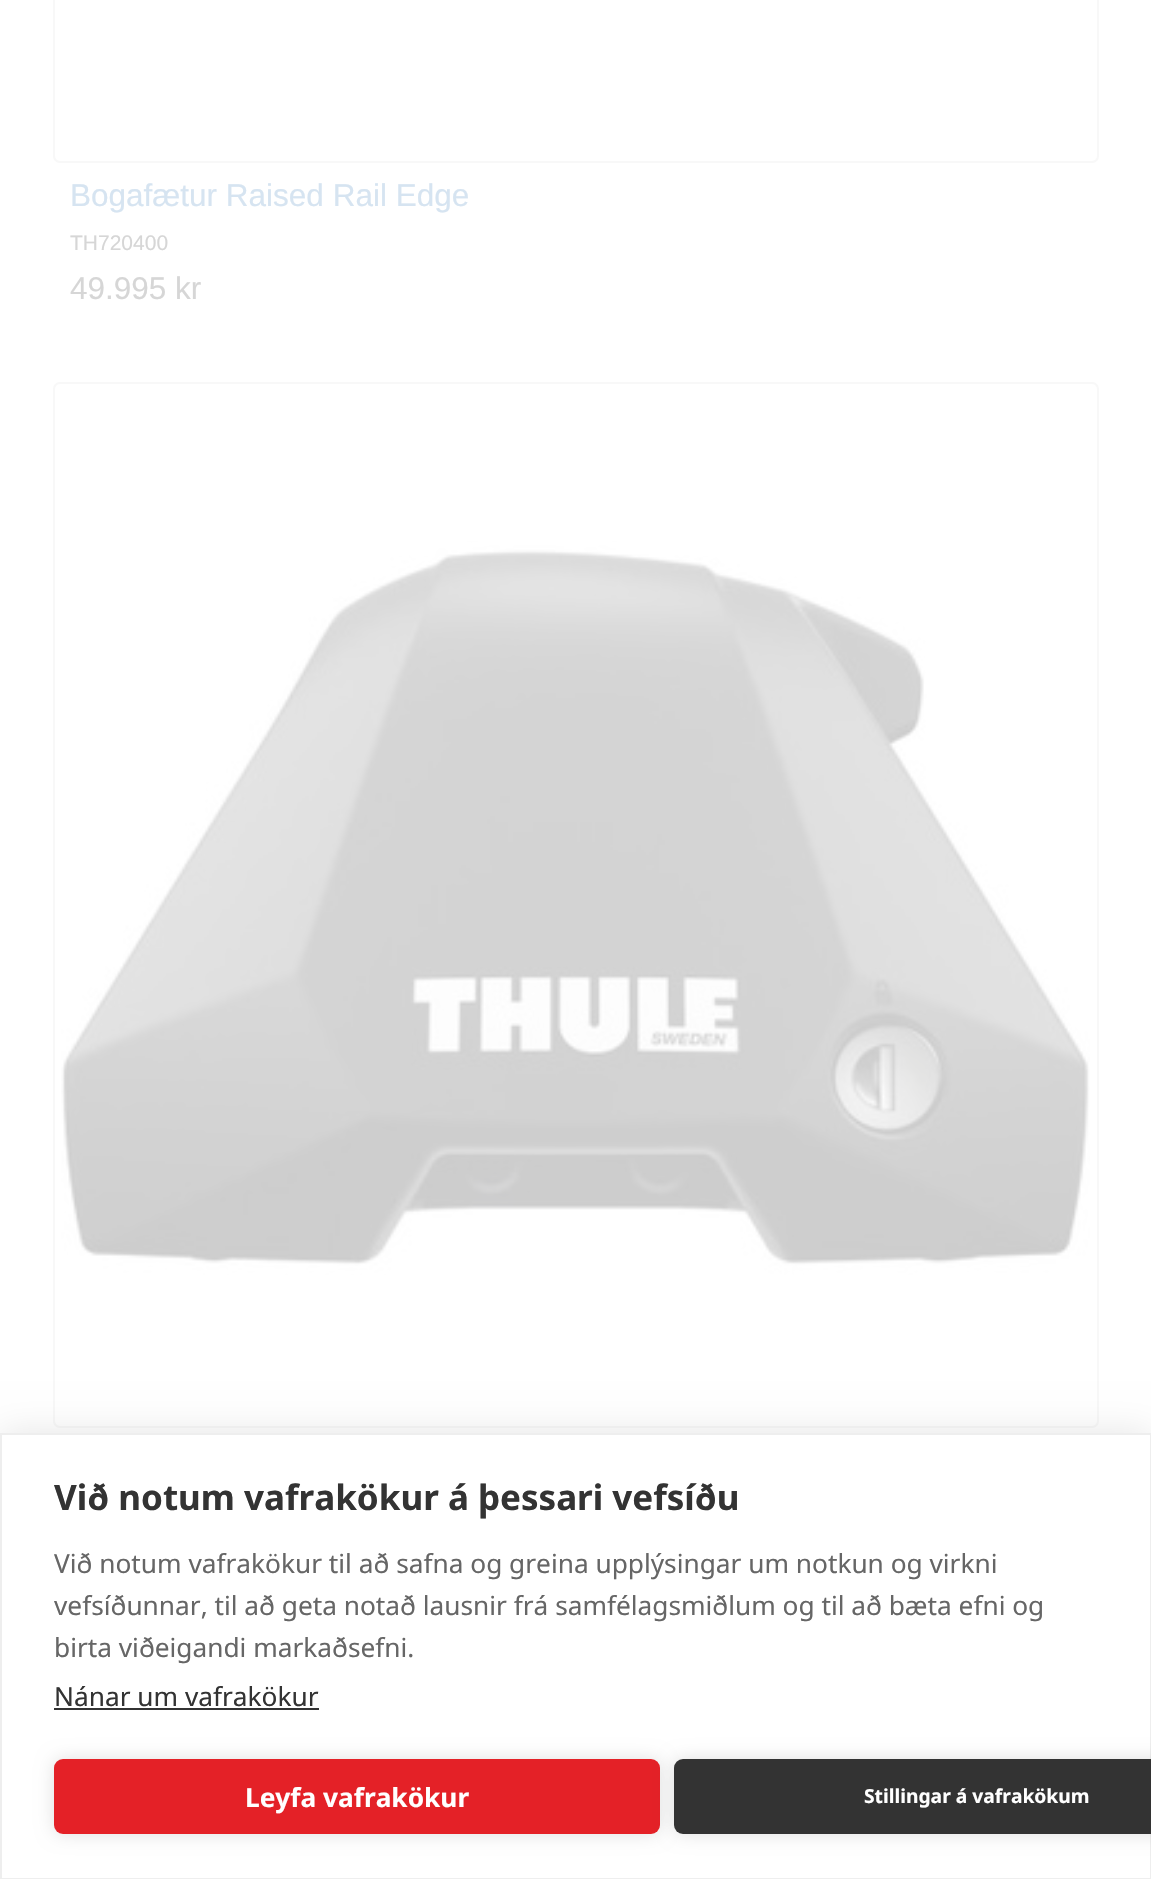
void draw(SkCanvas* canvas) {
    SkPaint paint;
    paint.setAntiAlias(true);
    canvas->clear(0xFFFFFFFF);
    paint.setStyle(SkPaint::kStroke_Style);
    paint.setStrokeWidth(2);
    paint.setColor(0xFFF8F8F8);
    canvas->drawRoundRect(SkRect::MakeXYWH(54, -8, 1044, 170), 6, 6, paint);
    SkFont font1(fontMgr->matchFamilyStyle("Liberation Sans", SkFontStyle::Normal()), 31.5f);
    font1.setSubpixel(true);
    paint.setStyle(SkPaint::kFill_Style);
    paint.setColor(0xFFD6E4F1);
    canvas->drawString("Bogafætur Raised Rail Edge", 70, 206, font1, paint);
    SkFont font2(fontMgr->matchFamilyStyle("Liberation Sans", SkFontStyle::Normal()), 21);
    font2.setSubpixel(true);
    paint.setColor(0xFFD6D6D6);
    canvas->drawString("TH720400", 70, 250, font2, paint);
    canvas->drawString("49.995 kr", 70, 299, font1, paint);
    paint.setStyle(SkPaint::kStroke_Style);
    paint.setColor(0xFFF8F8F8);
    canvas->drawRoundRect(SkRect::MakeXYWH(54, 383, 1044, 1044), 6, 6, paint);
    canvas->drawImageRect(SkImages::DeferredFromEncodedData(SkData::MakeFromFileName("img1.png")), SkRect::MakeXYWH(61, 541, 1029, 734), SkSamplingOptions());
    paint.setStyle(SkPaint::kFill_Style);
    paint.setColor(0x1A000000);
    paint.setMaskFilter(SkMaskFilter::MakeBlur(kNormal_SkBlurStyle, 17.5f));
    canvas->drawRect(SkRect::MakeXYWH(0, 1433, 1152, 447), paint);
    paint.setMaskFilter(nullptr);
    paint.setColor(0xFFFFFFFF);
    canvas->drawRect(SkRect::MakeXYWH(1, 1434, 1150, 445), paint);
    paint.setStyle(SkPaint::kStroke_Style);
    paint.setColor(0xFFEEEEEE);
    canvas->drawRect(SkRect::MakeXYWH(1, 1434, 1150, 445), paint);
    SkFont font3(fontMgr->matchFamilyStyle("Noto Sans", SkFontStyle::Bold()), 35);
    font3.setSubpixel(true);
    paint.setStyle(SkPaint::kFill_Style);
    paint.setColor(0xFF333333);
    canvas->drawString("Við notum vafrakökur á þessari vefsíðu", 54, 1510, font3, paint);
    SkFont font4(fontMgr->matchFamilyStyle("Noto Sans", SkFontStyle::Normal()), 26.25f);
    font4.setSubpixel(true);
    paint.setColor(0xFF666666);
    canvas->drawString("Við notum vafrakökur til að safna og greina upplýsingar um notkun og virkni", 54, 1573, font4, paint);
    canvas->drawString("vefsíðunnar, til að geta notað lausnir frá samfélagsmiðlum og til að bæta efni og", 54, 1615, font4, paint);
    canvas->drawString("birta viðeigandi markaðsefni.", 54, 1657, font4, paint);
    paint.setColor(0xFF333333);
    canvas->drawString("Nánar um vafrakökur", 54, 1706, font4, paint);
    canvas->drawRect(SkRect::MakeXYWH(54, 1708, 265, 2), paint);
    paint.setColor(0x1F000000);
    paint.setMaskFilter(SkMaskFilter::MakeBlur(kNormal_SkBlurStyle, 9));
    canvas->drawRoundRect(SkRect::MakeXYWH(54, 1759, 606, 75), 9, 9, paint);
    paint.setMaskFilter(nullptr);
    paint.setColor(0xFFE42127);
    canvas->drawRoundRect(SkRect::MakeXYWH(54, 1759, 606, 75), 9, 9, paint);
    SkFont font5(fontMgr->matchFamilyStyle("Noto Sans", SkFontStyle::Bold()), 26.25f);
    font5.setSubpixel(true);
    paint.setColor(0xFFFFFFFF);
    canvas->drawString("Leyfa vafrakökur", 245, 1807, font5, paint);
    paint.setColor(0x1F000000);
    paint.setMaskFilter(SkMaskFilter::MakeBlur(kNormal_SkBlurStyle, 9));
    canvas->drawRoundRect(SkRect::MakeXYWH(674, 1759, 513, 75), 9, 9, paint);
    paint.setMaskFilter(nullptr);
    paint.setColor(0xFF333333);
    canvas->drawRoundRect(SkRect::MakeXYWH(674, 1759, 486, 75), 9, 9, paint);
    SkFont font6(fontMgr->matchFamilyStyle("Noto Sans", SkFontStyle::Bold()), 19.25f);
    font6.setSubpixel(true);
    paint.setColor(0xFFFFFFFF);
    canvas->drawString("Stillingar á vafrakökum", 864, 1803, font6, paint);
}
